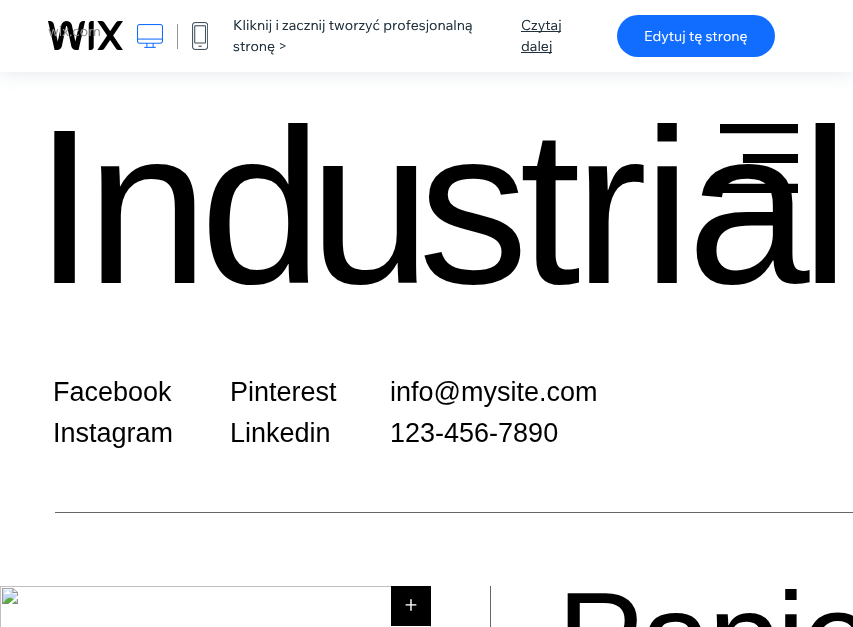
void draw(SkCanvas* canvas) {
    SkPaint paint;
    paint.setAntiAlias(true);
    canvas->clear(0xFFFFFFFF);
    canvas->drawImageRect(SkImages::DeferredFromEncodedData(SkData::MakeFromFileName("img4.png")), SkRect::MakeXYWH(0, 72, 853, 555), SkSamplingOptions());
    paint.setColor(0x3381A2B6);
    paint.setMaskFilter(SkMaskFilter::MakeBlur(kNormal_SkBlurStyle, 9));
    canvas->drawRect(SkRect::MakeXYWH(0, 2, 853, 72), paint);
    paint.setMaskFilter(nullptr);
    paint.setColor(0xFFFFFFFF);
    canvas->drawRect(SkRect::MakeXYWH(0, 0, 853, 72), paint);
    canvas->drawImageRect(SkImages::DeferredFromEncodedData(SkData::MakeFromFileName("img1.png")), SkRect::MakeXYWH(48, 21, 75, 29), SkSamplingOptions());
    SkFont font1(fontMgr->matchFamilyStyle("Wix Madefor Text", SkFontStyle::Normal()), 14);
    font1.setSubpixel(true);
    paint.setColor(0xFF8F8F8F);
    canvas->drawString("wix.com", 48, 36, font1, paint);
    canvas->drawImageRect(SkImages::DeferredFromEncodedData(SkData::MakeFromFileName("img2.png")), SkRect::MakeXYWH(137, 24, 26, 24), SkSamplingOptions());
    paint.setColor(0xFF90989E);
    canvas->drawRect(SkRect::MakeXYWH(177, 24, 1, 25), paint);
    canvas->drawImageRect(SkImages::DeferredFromEncodedData(SkData::MakeFromFileName("img3.png")), SkRect::MakeXYWH(192, 22, 16, 28), SkSamplingOptions());
    paint.setColor(0xFF20303C);
    canvas->drawString("Kliknij i zacznij tworzyć profesjonalną", 233, 30, font1, paint);
    canvas->drawString("stronę >", 233, 51, font1, paint);
    canvas->drawRect(SkRect::MakeXYWH(521, 31, 40, 1), paint);
    canvas->drawString("Czytaj", 521, 30, font1, paint);
    canvas->drawRect(SkRect::MakeXYWH(521, 52, 31, 1), paint);
    canvas->drawString("dalej", 521, 51, font1, paint);
    paint.setColor(0xFF116DFF);
    canvas->drawRoundRect(SkRect::MakeXYWH(617, 15, 158, 42), 21, 21, paint);
    paint.setColor(0xFFFFFFFF);
    canvas->drawString("Edytuj tę stronę", 644, 41, font1, paint);
}
